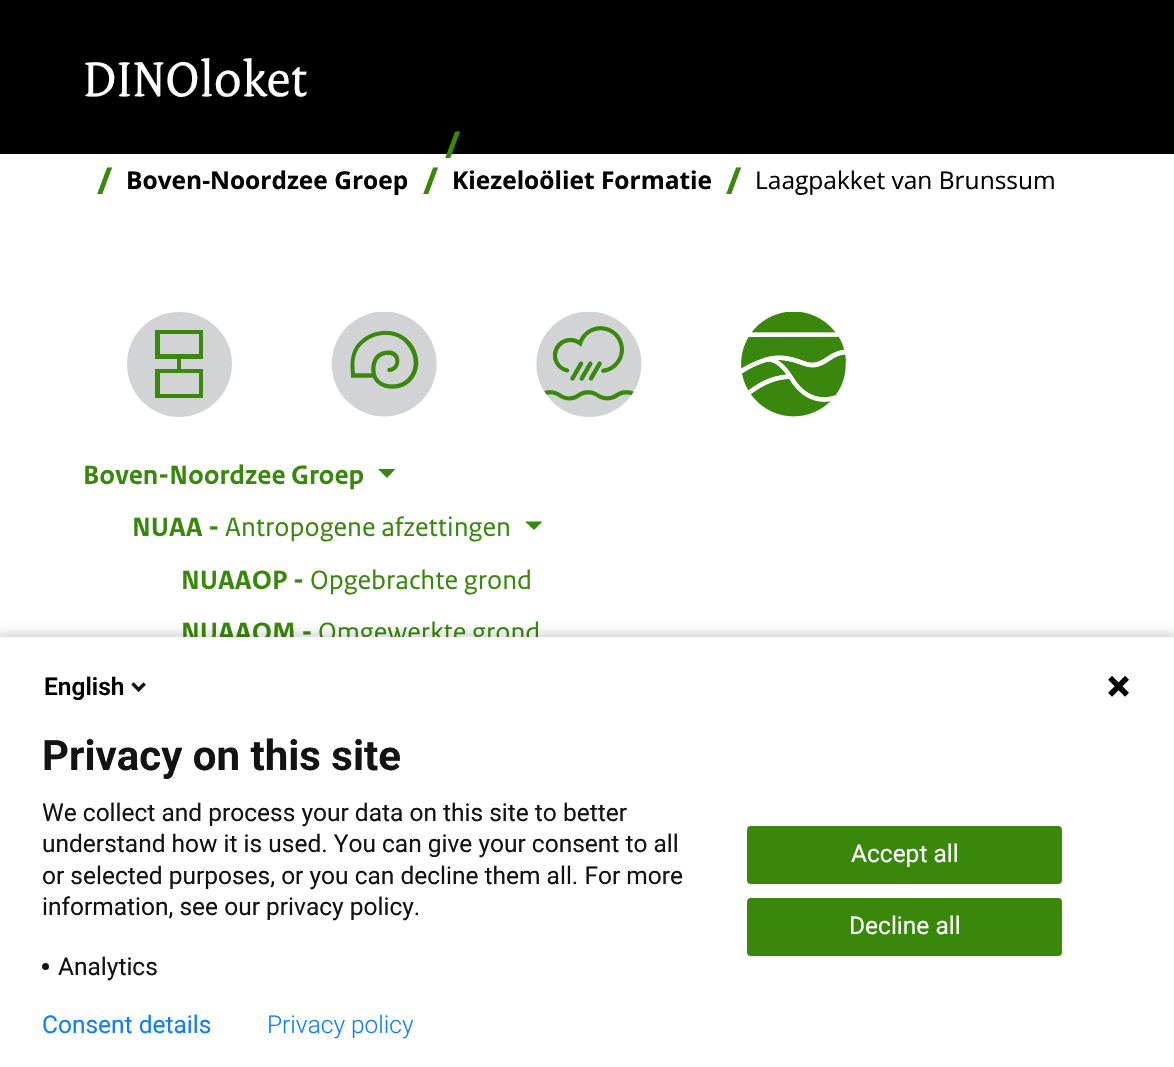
void draw(SkCanvas* canvas) {
    SkPaint paint;
    paint.setAntiAlias(true);
    canvas->clear(0xFFFFFFFF);
    paint.setColor(0xFF000000);
    canvas->drawRect(SkRect::MakeXYWH(0, 0, 1174, 154), paint);
    SkFont font1(fontMgr->matchFamilyStyle("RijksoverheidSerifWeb", SkFontStyle::Normal()), 52.5f);
    font1.setSubpixel(true);
    paint.setColor(0xFFFFFFFF);
    canvas->drawString("DINOloket", 83, 96, font1, paint);
    SkFont font2(fontMgr->matchFamilyStyle("Open Sans", SkFontStyle::Bold()), 37);
    font2.setSubpixel(true);
    paint.setColor(0xFF39870C);
    canvas->drawString("/", 445, 158, font2, paint);
    canvas->drawString("/", 97, 194, font2, paint);
    SkFont font3(fontMgr->matchFamilyStyle("Open Sans", SkFontStyle::Bold()), 24.5f);
    font3.setSubpixel(true);
    paint.setColor(0xFF000000);
    canvas->drawString("Boven-Noordzee Groep", 126, 189, font3, paint);
    paint.setColor(0xFF39870C);
    canvas->drawString("/", 423, 194, font2, paint);
    paint.setColor(0xFF000000);
    canvas->drawString("Kiezeloöliet Formatie", 452, 189, font3, paint);
    paint.setColor(0xFF39870C);
    canvas->drawString("/", 726, 194, font2, paint);
    SkFont font4(fontMgr->matchFamilyStyle("Open Sans", SkFontStyle::Normal()), 24.5f);
    font4.setSubpixel(true);
    paint.setColor(0xFF000000);
    canvas->drawString("Laagpakket van Brunssum", 755, 189, font4, paint);
    paint.setColor(0xFFD1D3D4);
    canvas->drawPath(SkPathBuilder().moveTo(232, 364).cubicTo(232, 393, 208, 417, 179, 417).cubicTo(150, 417, 127, 393, 127, 364).cubicTo(127, 335, 150, 312, 179, 312).cubicTo(208, 312, 232, 335, 232, 364).detach(), paint);
    paint.setColor(0xFF39870C);
    canvas->drawPath(SkPathBuilder().moveTo(155, 359).lineTo(177, 359).lineTo(177, 369).lineTo(155, 369).lineTo(155, 398).lineTo(203, 398).lineTo(203, 369).lineTo(181, 369).lineTo(181, 359).lineTo(203, 359).lineTo(203, 330).lineTo(155, 330).close().moveTo(199, 394).lineTo(160, 394).lineTo(160, 373).lineTo(199, 373).close().moveTo(160, 334).lineTo(199, 334).lineTo(199, 354).lineTo(160, 354).close().detach(), paint);
    canvas->drawImageRect(SkImages::DeferredFromEncodedData(SkData::MakeFromFileName("img1.png")), SkRect::MakeXYWH(331, 312, 106, 105), SkSamplingOptions());
    canvas->drawImageRect(SkImages::DeferredFromEncodedData(SkData::MakeFromFileName("img2.png")), SkRect::MakeXYWH(536, 312, 106, 105), SkSamplingOptions());
    canvas->drawImageRect(SkImages::DeferredFromEncodedData(SkData::MakeFromFileName("img3.png")), SkRect::MakeXYWH(741, 312, 105, 105), SkSamplingOptions());
    SkFont font5(fontMgr->matchFamilyStyle("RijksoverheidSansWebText", SkFontStyle::Bold()), 28);
    font5.setSubpixel(true);
    canvas->drawString("Boven-Noordzee Groep", 83, 484, font5, paint);
    canvas->drawPath(SkPathBuilder().moveTo(378, 469).lineTo(395.5f, 469).lineTo(387, 478).close().detach(), paint);
    canvas->drawString("NUAA -", 132, 536, font5, paint);
    SkFont font6(fontMgr->matchFamilyStyle("RijksoverheidSansWebText", SkFontStyle::Normal()), 28);
    font6.setSubpixel(true);
    canvas->drawString("Antropogene afzettingen", 225, 536, font6, paint);
    canvas->drawPath(SkPathBuilder().moveTo(525, 521.5f).lineTo(542.5f, 521.5f).lineTo(534, 530).close().detach(), paint);
    canvas->drawString("NUAAOP -", 181, 589, font5, paint);
    canvas->drawString("Opgebrachte grond", 310, 589, font6, paint);
    canvas->drawString("NUAAOM -", 181, 641, font5, paint);
    canvas->drawString("Omgewerkte grond", 318, 641, font6, paint);
    paint.setColor(0x24000000);
    paint.setMaskFilter(SkMaskFilter::MakeBlur(kNormal_SkBlurStyle, 4.5f));
    canvas->drawRect(SkRect::MakeXYWH(-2, 632, 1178, 434), paint);
    paint.setMaskFilter(nullptr);
    paint.setColor(0xFFFFFFFF);
    canvas->drawRect(SkRect::MakeXYWH(0, 637, 1174, 430), paint);
    SkFont font7(fontMgr->matchFamilyStyle("Roboto", SkFontStyle(600, SkFontStyle::kNormal_Width, SkFontStyle::kUpright_Slant)), 24.5f);
    font7.setSubpixel(true);
    paint.setColor(0xFF000000);
    canvas->drawString("English", 44, 695, font7, paint);
    canvas->drawImageRect(SkImages::DeferredFromEncodedData(SkData::MakeFromFileName("img4.png")), SkRect::MakeXYWH(131, 682, 15, 10), SkSamplingOptions());
    canvas->drawImageRect(SkImages::DeferredFromEncodedData(SkData::MakeFromFileName("img5.png")), SkRect::MakeXYWH(1108, 675, 21, 22), SkSamplingOptions());
    SkFont font8(fontMgr->matchFamilyStyle("Roboto", SkFontStyle::Bold()), 42);
    font8.setSubpixel(true);
    paint.setColor(0xFF131313);
    canvas->drawString("Privacy on this site", 42, 770, font8, paint);
    SkFont font9(fontMgr->matchFamilyStyle("Roboto", SkFontStyle::Normal()), 24.5f);
    font9.setSubpixel(true);
    canvas->drawString("We collect and process your data on this site to better", 42, 821, font9, paint);
    canvas->drawString("understand how it is used. You can give your consent to all", 42, 852, font9, paint);
    canvas->drawString("or selected purposes, or you can decline them all. For more", 42, 884, font9, paint);
    canvas->drawString("information, see our privacy policy.", 42, 915, font9, paint);
    canvas->drawCircle(45.5f, 966.5f, 3.5f, paint);
    canvas->drawString("Analytics", 58, 975, font9, paint);
    paint.setColor(0xFF39870B);
    canvas->drawRoundRect(SkRect::MakeXYWH(748, 827, 313, 56), 3, 3, paint);
    paint.setStyle(SkPaint::kStroke_Style);
    paint.setStrokeWidth(2);
    canvas->drawRoundRect(SkRect::MakeXYWH(748, 827, 313, 56), 3, 3, paint);
    paint.setStyle(SkPaint::kFill_Style);
    paint.setColor(0xFFFFFFFF);
    canvas->drawString("Accept all", 851, 862, font9, paint);
    paint.setColor(0xFF39870B);
    canvas->drawRoundRect(SkRect::MakeXYWH(748, 899, 313, 56), 3, 3, paint);
    paint.setStyle(SkPaint::kStroke_Style);
    canvas->drawRoundRect(SkRect::MakeXYWH(748, 899, 313, 56), 3, 3, paint);
    paint.setStyle(SkPaint::kFill_Style);
    paint.setColor(0xFFFFFFFF);
    canvas->drawString("Decline all", 849, 934, font9, paint);
    paint.setColor(0xFF107EF1);
    canvas->drawString("Consent details", 42, 1033, font9, paint);
    SkFont font10(fontMgr->matchFamilyStyle("Roboto", SkFontStyle(300, SkFontStyle::kNormal_Width, SkFontStyle::kUpright_Slant)), 24.5f);
    font10.setSubpixel(true);
    canvas->drawString("Privacy policy", 267, 1033, font10, paint);
}
